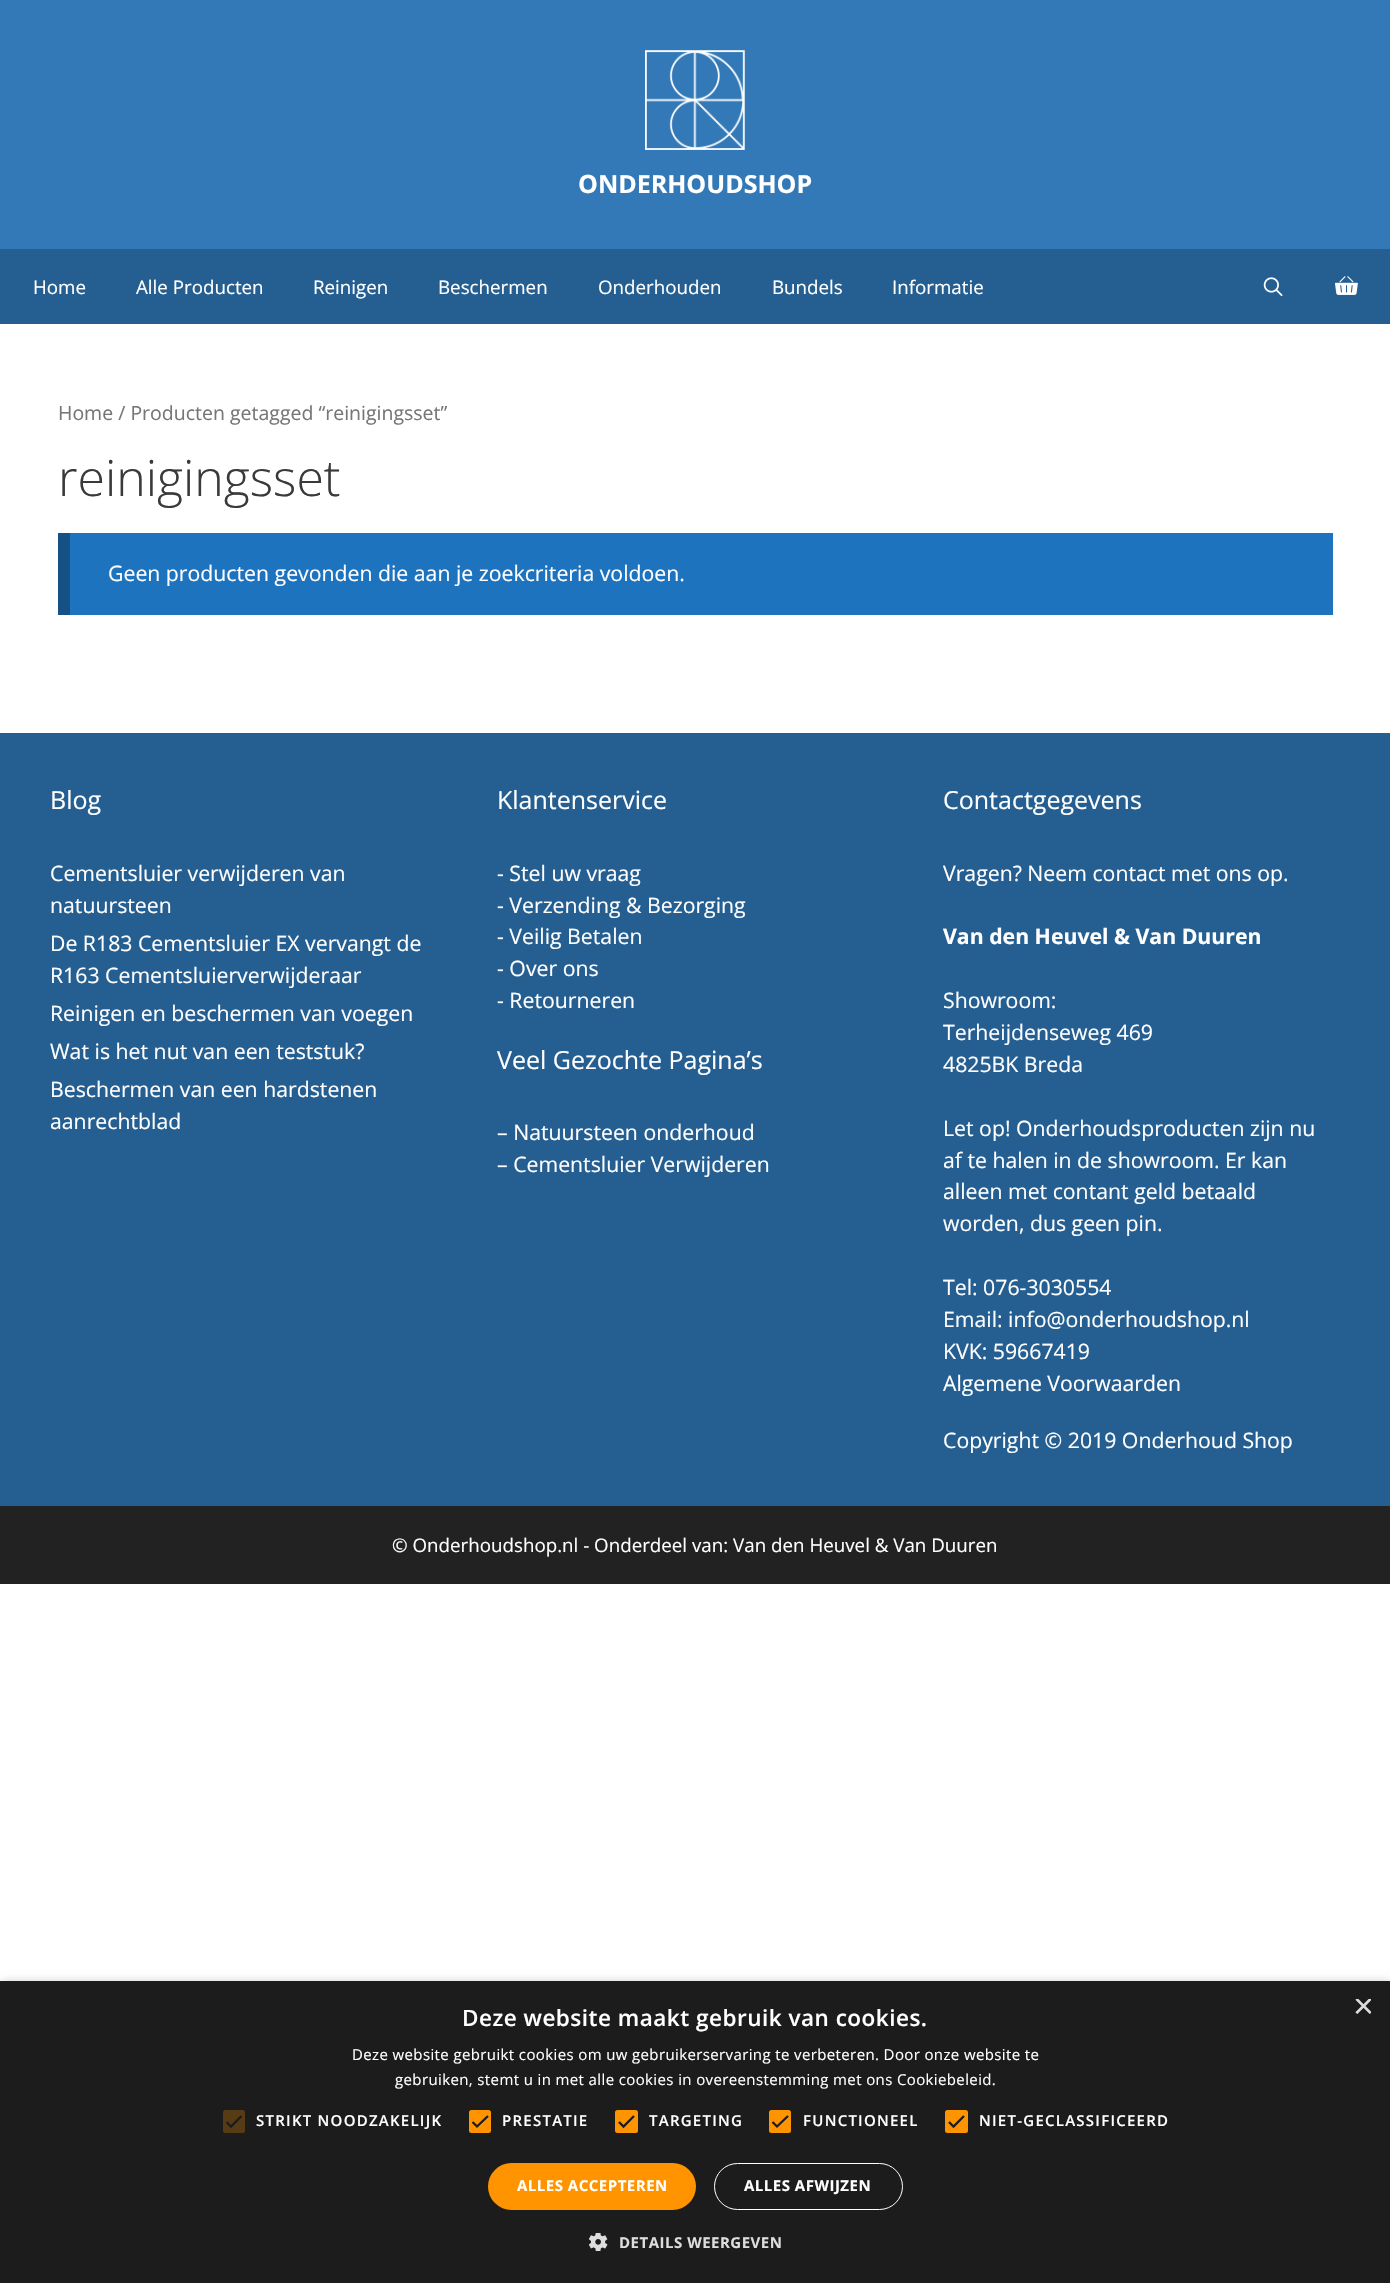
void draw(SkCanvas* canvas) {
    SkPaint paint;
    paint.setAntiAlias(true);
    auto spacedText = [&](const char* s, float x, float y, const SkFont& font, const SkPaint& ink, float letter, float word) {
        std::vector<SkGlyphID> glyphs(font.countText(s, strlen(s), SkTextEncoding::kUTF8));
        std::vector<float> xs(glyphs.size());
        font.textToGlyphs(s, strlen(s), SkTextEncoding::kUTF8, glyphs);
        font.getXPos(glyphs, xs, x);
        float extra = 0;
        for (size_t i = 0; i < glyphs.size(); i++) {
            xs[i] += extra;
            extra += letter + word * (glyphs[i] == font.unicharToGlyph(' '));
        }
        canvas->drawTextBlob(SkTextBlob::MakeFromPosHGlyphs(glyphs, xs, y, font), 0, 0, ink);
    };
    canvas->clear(0xFFFFFFFF);
    paint.setColor(0xFF3379B7);
    canvas->drawRect(SkRect::MakeXYWH(0, 0, 1390, 249), paint);
    canvas->drawImageRect(SkImages::DeferredFromEncodedData(SkData::MakeFromFileName("img1.png")), SkRect::MakeXYWH(645, 50, 100, 100), SkSamplingOptions());
    SkFont font1(fontMgr->matchFamilyStyle("Open Sans", SkFontStyle::Bold()), 25);
    font1.setSubpixel(true);
    paint.setColor(0xFFFFFFFF);
    canvas->drawString("ONDERHOUDSHOP", 578, 193, font1, paint);
    paint.setColor(0xFF255F92);
    canvas->drawRect(SkRect::MakeXYWH(0, 249, 1390, 75), paint);
    SkFont font2(fontMgr->matchFamilyStyle("Open Sans", SkFontStyle::Normal()), 18.75f);
    font2.setSubpixel(true);
    paint.setColor(0xFFFFFFFF);
    canvas->drawString("Home", 33, 294, font2, paint);
    canvas->drawString("Alle Producten", 136, 294, font2, paint);
    canvas->drawString("Reinigen", 313, 294, font2, paint);
    canvas->drawString("Beschermen", 438, 294, font2, paint);
    canvas->drawString("Onderhouden", 598, 294, font2, paint);
    canvas->drawString("Bundels", 772, 294, font2, paint);
    canvas->drawString("Informatie", 892, 294, font2, paint);
    canvas->drawImageRect(SkImages::DeferredFromEncodedData(SkData::MakeFromFileName("img2.png")), SkRect::MakeXYWH(1263, 277, 20, 19), SkSamplingOptions());
    canvas->drawImageRect(SkImages::DeferredFromEncodedData(SkData::MakeFromFileName("img3.png")), SkRect::MakeXYWH(1335, 276, 23, 19), SkSamplingOptions());
    SkFont font3(fontMgr->matchFamilyStyle("Open Sans", SkFontStyle::Normal()), 19.5f);
    font3.setSubpixel(true);
    paint.setColor(0xFF767676);
    canvas->drawString("Home / Producten getagged “reinigingsset”", 58, 420, font3, paint);
    SkFont font4(fontMgr->matchFamilyStyle("Open Sans", SkFontStyle(300, SkFontStyle::kNormal_Width, SkFontStyle::kUpright_Slant)), 50);
    font4.setSubpixel(true);
    paint.setColor(0xFF3A3A3A);
    canvas->drawString("reinigingsset", 58, 496, font4, paint);
    paint.setColor(0xFF1E73BE);
    canvas->drawRect(SkRect::MakeXYWH(70, 533, 1263, 82), paint);
    paint.setColor(0xFF155185);
    canvas->drawRect(SkRect::MakeXYWH(58, 533, 12, 82), paint);
    SkFont font5(fontMgr->matchFamilyStyle("Open Sans", SkFontStyle::Normal()), 21.25f);
    font5.setSubpixel(true);
    paint.setColor(0xFFFFFFFF);
    canvas->drawString("Geen producten gevonden die aan je zoekcriteria voldoen.", 108, 581, font5, paint);
    paint.setColor(0xFF255F92);
    canvas->drawRect(SkRect::MakeXYWH(0, 733, 1390, 773), paint);
    SkFont font6(fontMgr->matchFamilyStyle("Open Sans", SkFontStyle::Normal()), 25);
    font6.setSubpixel(true);
    paint.setColor(0xFFFFFFFF);
    canvas->drawString("Blog", 50, 809, font6, paint);
    canvas->drawString("Cementsluier verwijderen van", 50, 881, font5, paint);
    canvas->drawString("natuursteen", 50, 913, font5, paint);
    canvas->drawString("De R183 Cementsluier EX vervangt de", 50, 951, font5, paint);
    canvas->drawString("R163 Cementsluierverwijderaar", 50, 983, font5, paint);
    canvas->drawString("Reinigen en beschermen van voegen", 50, 1021, font5, paint);
    canvas->drawString("Wat is het nut van een teststuk?", 50, 1059, font5, paint);
    canvas->drawString("Beschermen van een hardstenen", 50, 1097, font5, paint);
    canvas->drawString("aanrechtblad", 50, 1129, font5, paint);
    canvas->drawString("Klantenservice", 497, 809, font6, paint);
    canvas->drawString("- Stel uw vraag", 497, 881, font5, paint);
    canvas->drawString("- Verzending & Bezorging", 497, 913, font5, paint);
    canvas->drawString("- Veilig Betalen", 497, 944, font5, paint);
    canvas->drawString("- Over ons", 497, 976, font5, paint);
    canvas->drawString("- Retourneren", 497, 1008, font5, paint);
    canvas->drawString("Veel Gezochte Pagina’s", 497, 1069, font6, paint);
    canvas->drawString("– Natuursteen onderhoud", 497, 1140, font5, paint);
    canvas->drawString("– Cementsluier Verwijderen", 497, 1172, font5, paint);
    canvas->drawString("Contactgegevens", 943, 809, font6, paint);
    canvas->drawString("Vragen? Neem contact met ons op.", 943, 881, font5, paint);
    SkFont font7(fontMgr->matchFamilyStyle("Open Sans", SkFontStyle::Bold()), 21.25f);
    font7.setSubpixel(true);
    canvas->drawString("Van den Heuvel & Van Duuren", 943, 944, font7, paint);
    canvas->drawString("Showroom:", 943, 1008, font5, paint);
    canvas->drawString("Terheijdenseweg 469", 943, 1040, font5, paint);
    canvas->drawString("4825BK Breda", 943, 1072, font5, paint);
    canvas->drawString("Let op! Onderhoudsproducten zijn nu", 943, 1136, font5, paint);
    canvas->drawString("af te halen in de showroom. Er kan", 943, 1168, font5, paint);
    canvas->drawString("alleen met contant geld betaald", 943, 1199, font5, paint);
    canvas->drawString("worden, dus geen pin.", 943, 1231, font5, paint);
    canvas->drawString("Tel: 076-3030554", 943, 1295, font5, paint);
    canvas->drawString("Email: info@onderhoudshop.nl", 943, 1327, font5, paint);
    canvas->drawString("KVK: 59667419", 943, 1359, font5, paint);
    canvas->drawString("Algemene Voorwaarden", 943, 1391, font5, paint);
    canvas->drawString("Copyright © 2019 Onderhoud Shop", 943, 1448, font5, paint);
    paint.setColor(0xFF222222);
    canvas->drawRect(SkRect::MakeXYWH(0, 1506, 1390, 78), paint);
    paint.setColor(0xFFFFFFFF);
    canvas->drawString("© Onderhoudshop.nl - Onderdeel van: Van den Heuvel & Van Duuren", 392, 1552, font2, paint);
    paint.setColor(0x59000000);
    paint.setMaskFilter(SkMaskFilter::MakeBlur(kNormal_SkBlurStyle, 5));
    canvas->drawRect(SkRect::MakeXYWH(1, 1984, 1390, 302), paint);
    paint.setMaskFilter(nullptr);
    paint.setColor(0xFF1C1C1C);
    canvas->drawRect(SkRect::MakeXYWH(0, 1981, 1390, 302), paint);
    canvas->save();
    canvas->clipRect(SkRect::MakeXYWH(1353, 1999, 18, 19));
    SkFont font8(fontMgr->matchFamilyStyle("Liberation Sans", SkFontStyle::Normal()), 36);
    font8.setSubpixel(true);
    paint.setColor(0xFFDDDDDD);
    canvas->drawString("×", 1353, 2018, font8, paint);
    canvas->restore();
    SkFont font9(fontMgr->matchFamilyStyle("Open Sans", SkFontStyle(600, SkFontStyle::kNormal_Width, SkFontStyle::kUpright_Slant)), 22.5f);
    font9.setSubpixel(true);
    paint.setColor(0xFFFFFFFF);
    spacedText("Deze website maakt gebruik van cookies.", 462, 2026, font9, paint, 0.5f, 0);
    SkFont font10(fontMgr->matchFamilyStyle("Open Sans", SkFontStyle::Normal()), 15);
    font10.setSubpixel(true);
    spacedText("Deze website gebruikt cookies om uw gebruikerservaring te verbeteren. Door onze website te", 352, 2060, font10, paint, 0.38f, 0);
    spacedText("gebruiken, stemt u in met alle cookies in overeenstemming met ons Cookiebeleid.", 395, 2085, font10, paint, 0.38f, 0);
    paint.setColor(0xFF573B15);
    canvas->drawRoundRect(SkRect::MakeXYWH(223, 2110, 22, 23), 2.5f, 2.5f, paint);
    paint.setStyle(SkPaint::kStroke_Style);
    paint.setStrokeWidth(2.3f);
    paint.setColor(0xFF1C1C1C);
    canvas->drawPath(SkPathBuilder().moveTo(226.5f, 2122).lineTo(231, 2126.5f).lineTo(241.5f, 2116).detach(), paint);
    SkFont font11(fontMgr->matchFamilyStyle("Open Sans", SkFontStyle(600, SkFontStyle::kNormal_Width, SkFontStyle::kUpright_Slant)), 15);
    font11.setSubpixel(true);
    paint.setStyle(SkPaint::kFill_Style);
    paint.setColor(0xFFFFFFFF);
    spacedText("STRIKT NOODZAKELIJK", 256, 2126, font11, paint, 1.25f, 0);
    paint.setColor(0xFFFF9400);
    canvas->drawRoundRect(SkRect::MakeXYWH(470.5f, 2111.5f, 19, 20), 1, 1, paint);
    paint.setStyle(SkPaint::kStroke_Style);
    paint.setStrokeWidth(3);
    canvas->drawRoundRect(SkRect::MakeXYWH(470.5f, 2111.5f, 19, 20), 1, 1, paint);
    paint.setStrokeWidth(2.3f);
    paint.setColor(0xFF1C1C1C);
    canvas->drawPath(SkPathBuilder().moveTo(472.5f, 2122).lineTo(477, 2126.5f).lineTo(488, 2116).detach(), paint);
    paint.setStyle(SkPaint::kFill_Style);
    paint.setColor(0xFFFFFFFF);
    spacedText("PRESTATIE", 502, 2126, font11, paint, 1.25f, 0);
    paint.setColor(0xFFFF9400);
    canvas->drawRoundRect(SkRect::MakeXYWH(616.5f, 2111.5f, 20, 20), 1, 1, paint);
    paint.setStyle(SkPaint::kStroke_Style);
    paint.setStrokeWidth(3);
    canvas->drawRoundRect(SkRect::MakeXYWH(616.5f, 2111.5f, 20, 20), 1, 1, paint);
    paint.setStrokeWidth(2.3f);
    paint.setColor(0xFF1C1C1C);
    canvas->drawPath(SkPathBuilder().moveTo(619, 2122).lineTo(623.5f, 2126.5f).lineTo(634, 2116).detach(), paint);
    paint.setStyle(SkPaint::kFill_Style);
    paint.setColor(0xFFFFFFFF);
    spacedText("TARGETING", 649, 2126, font11, paint, 1.25f, 0);
    paint.setColor(0xFFFF9400);
    canvas->drawRoundRect(SkRect::MakeXYWH(770.5f, 2111.5f, 19, 20), 1, 1, paint);
    paint.setStyle(SkPaint::kStroke_Style);
    paint.setStrokeWidth(3);
    canvas->drawRoundRect(SkRect::MakeXYWH(770.5f, 2111.5f, 19, 20), 1, 1, paint);
    paint.setStrokeWidth(2.3f);
    paint.setColor(0xFF1C1C1C);
    canvas->drawPath(SkPathBuilder().moveTo(772.5f, 2122).lineTo(777, 2126.5f).lineTo(788, 2116).detach(), paint);
    paint.setStyle(SkPaint::kFill_Style);
    paint.setColor(0xFFFFFFFF);
    spacedText("FUNCTIONEEL", 803, 2126, font11, paint, 1.25f, 0);
    paint.setColor(0xFFFF9400);
    canvas->drawRoundRect(SkRect::MakeXYWH(946.5f, 2111.5f, 20, 20), 1, 1, paint);
    paint.setStyle(SkPaint::kStroke_Style);
    paint.setStrokeWidth(3);
    canvas->drawRoundRect(SkRect::MakeXYWH(946.5f, 2111.5f, 20, 20), 1, 1, paint);
    paint.setStrokeWidth(2.3f);
    paint.setColor(0xFF1C1C1C);
    canvas->drawPath(SkPathBuilder().moveTo(949, 2122).lineTo(953.5f, 2126.5f).lineTo(964, 2116).detach(), paint);
    paint.setStyle(SkPaint::kFill_Style);
    paint.setColor(0xFFFFFFFF);
    spacedText("NIET-GECLASSIFICEERD", 979, 2126, font11, paint, 1.25f, 0);
    paint.setColor(0xFFFF9400);
    canvas->drawRoundRect(SkRect::MakeXYWH(488, 2163, 208, 47), 23.5f, 23.5f, paint);
    SkFont font12(fontMgr->matchFamilyStyle("Open Sans", SkFontStyle::Bold()), 15);
    font12.setSubpixel(true);
    paint.setColor(0xFFFFFFFF);
    spacedText("ALLES ACCEPTEREN", 517, 2191, font12, paint, 0.5f, 0);
    paint.setStyle(SkPaint::kStroke_Style);
    paint.setStrokeWidth(1);
    canvas->drawRoundRect(SkRect::MakeXYWH(714.5f, 2163.5f, 188, 46), 23, 23, paint);
    paint.setStyle(SkPaint::kFill_Style);
    spacedText("ALLES AFWIJZEN", 744, 2191, font12, paint, 0.5f, 0);
    canvas->drawImageRect(SkImages::DeferredFromEncodedData(SkData::MakeFromFileName("img4.png")), SkRect::MakeXYWH(589, 2233, 19, 18), SkSamplingOptions());
    paint.setColor(0xFFDDDDDD);
    spacedText("DETAILS WEERGEVEN", 619, 2248, font12, paint, 0.5f, 0);
}
